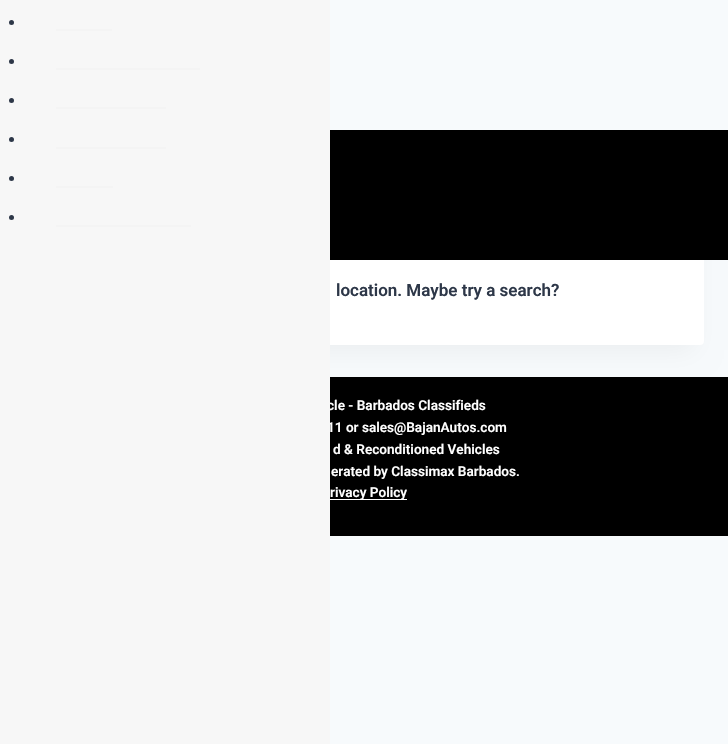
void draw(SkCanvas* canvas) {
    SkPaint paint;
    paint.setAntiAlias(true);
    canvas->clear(0xFFF7FAFC);
    paint.setColor(0xFF000000);
    canvas->drawRect(SkRect::MakeXYWH(330, 377, 398, 159), paint);
    paint.setColor(0x0D000000);
    paint.setMaskFilter(SkMaskFilter::MakeBlur(kNormal_SkBlurStyle, 12.5f));
    canvas->drawRect(SkRect::MakeXYWH(34, 187, 660, 163), paint);
    paint.setMaskFilter(nullptr);
    paint.setColor(0xFFFFFFFF);
    canvas->drawRoundRect(SkRect::MakeXYWH(24, 162, 680, 183), 4, 4, paint);
    SkFont font1(fontMgr->matchFamilyStyle("Roboto", SkFontStyle(600, SkFontStyle::kNormal_Width, SkFontStyle::kUpright_Slant)), 13.6f);
    font1.setSubpixel(true);
    canvas->drawString("cle - Barbados Classifieds", 327, 410, font1, paint);
    canvas->drawString("11 or sales@BajanAutos.com", 327, 432, font1, paint);
    paint.setColor(0xFFF7F7F7);
    canvas->drawRect(SkRect::MakeXYWH(0, 0, 330, 744), paint);
    paint.setColor(0xFF2D3748);
    canvas->drawCircle(11.5f, 22.5f, 2.5f, paint);
    paint.setColor(0xFFF4F4F4);
    canvas->drawRect(SkRect::MakeXYWH(56, 29, 56, 2), paint);
    paint.setColor(0xFF2D3748);
    canvas->drawCircle(11.5f, 61.5f, 2.5f, paint);
    paint.setColor(0xFFF4F4F4);
    canvas->drawRect(SkRect::MakeXYWH(56, 68, 144, 2), paint);
    paint.setColor(0xFF2D3748);
    canvas->drawCircle(11.5f, 100.5f, 2.5f, paint);
    paint.setColor(0xFFF4F4F4);
    canvas->drawRect(SkRect::MakeXYWH(56, 107, 110, 2), paint);
    paint.setColor(0xFF2D3748);
    canvas->drawCircle(11.5f, 139.5f, 2.5f, paint);
    paint.setColor(0xFFF4F4F4);
    canvas->drawRect(SkRect::MakeXYWH(56, 147, 110, 2), paint);
    paint.setColor(0xFF2D3748);
    canvas->drawCircle(11.5f, 178.5f, 2.5f, paint);
    paint.setColor(0xFFF4F4F4);
    canvas->drawRect(SkRect::MakeXYWH(56, 186, 57, 2), paint);
    paint.setColor(0xFF2D3748);
    canvas->drawCircle(11.5f, 217.5f, 2.5f, paint);
    paint.setColor(0xFFF4F4F4);
    canvas->drawRect(SkRect::MakeXYWH(56, 225, 135, 2), paint);
    paint.setColor(0xFF000000);
    canvas->drawRect(SkRect::MakeXYWH(330, 130, 398, 130), paint);
    SkFont font2(fontMgr->matchFamilyStyle("Roboto", SkFontStyle(600, SkFontStyle::kNormal_Width, SkFontStyle::kUpright_Slant)), 17);
    font2.setSubpixel(true);
    paint.setColor(0xFF2D3748);
    canvas->drawString("location. Maybe try a search?", 336, 296, font2, paint);
    paint.setColor(0xFFFFFFFF);
    canvas->drawString("d & Reconditioned Vehicles", 333, 454, font1, paint);
    canvas->drawString("erated by Classimax Barbados.", 331, 476, font1, paint);
    canvas->drawRect(SkRect::MakeXYWH(330, 499, 77, 1), paint);
    canvas->drawString("rivacy Policy", 330, 497, font1, paint);
}
